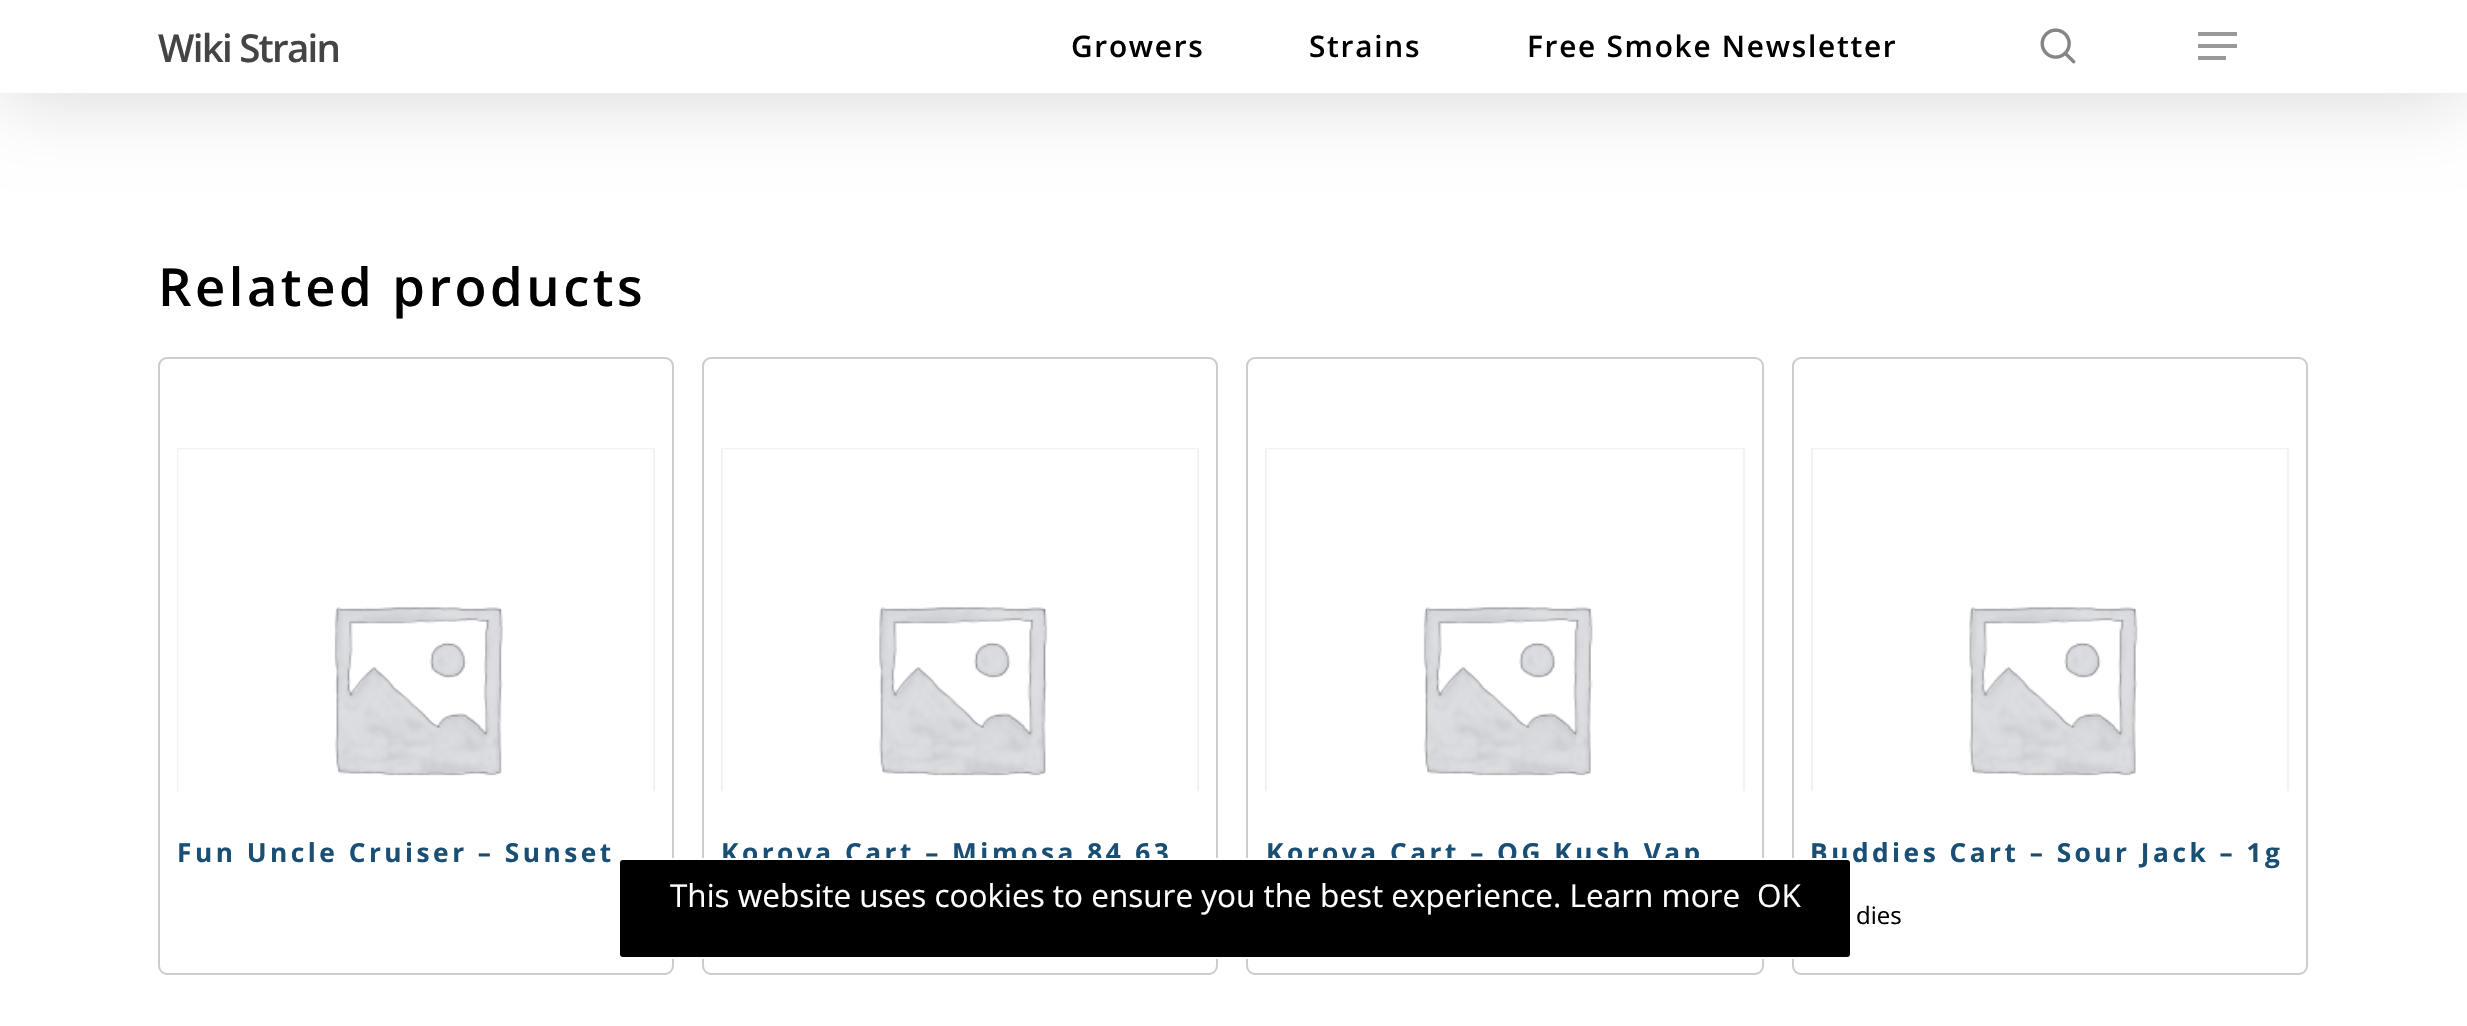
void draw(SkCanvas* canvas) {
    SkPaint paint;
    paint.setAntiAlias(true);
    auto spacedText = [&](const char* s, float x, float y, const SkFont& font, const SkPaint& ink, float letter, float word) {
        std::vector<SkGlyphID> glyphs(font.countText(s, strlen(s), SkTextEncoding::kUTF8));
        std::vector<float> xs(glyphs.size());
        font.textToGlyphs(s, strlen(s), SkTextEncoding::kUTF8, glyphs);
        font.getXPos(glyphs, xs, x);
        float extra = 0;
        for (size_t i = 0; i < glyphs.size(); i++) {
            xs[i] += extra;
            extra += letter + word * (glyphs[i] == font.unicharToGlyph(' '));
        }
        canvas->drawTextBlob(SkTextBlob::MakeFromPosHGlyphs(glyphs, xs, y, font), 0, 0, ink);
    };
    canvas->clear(0xFFFFFFFF);
    paint.setColor(0x26000000);
    paint.setMaskFilter(SkMaskFilter::MakeBlur(kNormal_SkBlurStyle, 39.5f));
    canvas->drawRect(SkRect::MakeXYWH(0, 5, 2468, 93), paint);
    paint.setMaskFilter(nullptr);
    paint.setColor(0xFFFFFFFF);
    canvas->drawRect(SkRect::MakeXYWH(0, 0, 2467, 93), paint);
    SkFont font1(fontMgr->matchFamilyStyle("Open Sans", SkFontStyle(600, SkFontStyle::kNormal_Width, SkFontStyle::kUpright_Slant)), 38.5f);
    font1.setSubpixel(true);
    paint.setColor(0xFF444444);
    spacedText("Wiki Strain", 158, 62, font1, paint, -1.75f, 0);
    SkFont font2(fontMgr->matchFamilyStyle("Open Sans", SkFontStyle(600, SkFontStyle::kNormal_Width, SkFontStyle::kUpright_Slant)), 29.75f);
    font2.setSubpixel(true);
    paint.setColor(0xFF000000);
    spacedText("Growers", 1071, 57, font2, paint, 1.75f, 0);
    spacedText("Strains", 1309, 57, font2, paint, 1.75f, 0);
    spacedText("Free Smoke Newsletter", 1527, 57, font2, paint, 1.75f, 0);
    canvas->drawImageRect(SkImages::DeferredFromEncodedData(SkData::MakeFromFileName("img1.png")), SkRect::MakeXYWH(2040, 28, 36, 36), SkSamplingOptions());
    paint.setColor(0xFF999999);
    canvas->drawRect(SkRect::MakeXYWH(2198, 32, 39, 4), paint);
    canvas->drawRect(SkRect::MakeXYWH(2198, 56, 28, 4), paint);
    canvas->drawRect(SkRect::MakeXYWH(2198, 44, 39, 4), paint);
    SkFont font3(fontMgr->matchFamilyStyle("Open Sans", SkFontStyle(600, SkFontStyle::kNormal_Width, SkFontStyle::kUpright_Slant)), 52.5f);
    font3.setSubpixel(true);
    paint.setColor(0xFF000000);
    spacedText("Related products", 158, 306, font3, paint, 3.5f, 0);
    paint.setStyle(SkPaint::kStroke_Style);
    paint.setStrokeWidth(2);
    paint.setColor(0xFFCCCCCC);
    canvas->drawRoundRect(SkRect::MakeXYWH(159, 358, 514, 616), 8, 8, paint);
    canvas->save();
    canvas->clipRect(SkRect::MakeXYWH(177, 448, 478, 343));
    paint.setColor(0xFFF2F2F2);
    canvas->drawRect(SkRect::MakeXYWH(178, 449, 476, 476), paint);
    canvas->restore();
    canvas->drawImageRect(SkImages::DeferredFromEncodedData(SkData::MakeFromFileName("img2.png")), SkRect::MakeXYWH(178, 449, 475, 341), SkSamplingOptions());
    SkFont font4(fontMgr->matchFamilyStyle("Open Sans", SkFontStyle::Bold()), 26.25f);
    font4.setSubpixel(true);
    paint.setStyle(SkPaint::kFill_Style);
    paint.setColor(0xFF1A4F75);
    spacedText("Fun Uncle Cruiser – Sunset", 177, 862, font4, paint, 3.5f, 0);
    paint.setStyle(SkPaint::kStroke_Style);
    paint.setColor(0xFFCCCCCC);
    canvas->drawRoundRect(SkRect::MakeXYWH(703, 358, 514, 616), 8, 8, paint);
    canvas->save();
    canvas->clipRect(SkRect::MakeXYWH(721, 448, 478, 343));
    paint.setColor(0xFFF2F2F2);
    canvas->drawRect(SkRect::MakeXYWH(722, 449, 476, 476), paint);
    canvas->restore();
    canvas->drawImageRect(SkImages::DeferredFromEncodedData(SkData::MakeFromFileName("img3.png")), SkRect::MakeXYWH(723, 449, 474, 327), SkSamplingOptions());
    paint.setStyle(SkPaint::kFill_Style);
    paint.setColor(0xFF1A4F75);
    spacedText("Korova Cart – Mimosa 84.63", 721, 862, font4, paint, 3.5f, 0);
    paint.setStyle(SkPaint::kStroke_Style);
    paint.setColor(0xFFCCCCCC);
    canvas->drawRoundRect(SkRect::MakeXYWH(1247, 358, 516, 616), 8, 8, paint);
    canvas->save();
    canvas->clipRect(SkRect::MakeXYWH(1265, 448, 480, 343));
    paint.setColor(0xFFF2F2F2);
    canvas->drawRect(SkRect::MakeXYWH(1266, 449, 478, 476), paint);
    canvas->restore();
    canvas->drawImageRect(SkImages::DeferredFromEncodedData(SkData::MakeFromFileName("img4.png")), SkRect::MakeXYWH(1267, 449, 476, 327), SkSamplingOptions());
    paint.setStyle(SkPaint::kFill_Style);
    paint.setColor(0xFF1A4F75);
    spacedText("Korova Cart – OG Kush Vap", 1266, 862, font4, paint, 3.5f, 0);
    paint.setStyle(SkPaint::kStroke_Style);
    paint.setColor(0xFFCCCCCC);
    canvas->drawRoundRect(SkRect::MakeXYWH(1793, 358, 514, 616), 8, 8, paint);
    paint.setStyle(SkPaint::kFill_Style);
    paint.setColor(0xFF1A4F75);
    spacedText("Buddies Cart – Sour Jack – 1g", 1810, 862, font4, paint, 3.5f, 0);
    SkFont font5(fontMgr->matchFamilyStyle("Open Sans", SkFontStyle::Normal()), 24);
    font5.setSubpixel(true);
    paint.setColor(0xFF000000);
    canvas->drawString("dies", 1856, 924, font5, paint);
    canvas->save();
    canvas->clipRect(SkRect::MakeXYWH(1811, 448, 478, 343));
    paint.setStyle(SkPaint::kStroke_Style);
    paint.setColor(0xFFF2F2F2);
    canvas->drawRect(SkRect::MakeXYWH(1812, 449, 476, 476), paint);
    canvas->restore();
    canvas->drawImageRect(SkImages::DeferredFromEncodedData(SkData::MakeFromFileName("img5.png")), SkRect::MakeXYWH(1813, 449, 474, 327), SkSamplingOptions());
    paint.setStyle(SkPaint::kFill_Style);
    paint.setColor(0xFF000000);
    canvas->drawRoundRect(SkRect::MakeXYWH(619, 859, 1232, 99), 4, 4, paint);
    paint.setStyle(SkPaint::kStroke_Style);
    paint.setColor(0xFFFFFFFF);
    canvas->drawRoundRect(SkRect::MakeXYWH(619, 859, 1232, 99), 4, 4, paint);
    SkFont font6(fontMgr->matchFamilyStyle("Open Sans", SkFontStyle::Normal()), 31.5f);
    font6.setSubpixel(true);
    paint.setStyle(SkPaint::kFill_Style);
    canvas->drawString("This website uses cookies to ensure you the best experience. Learn more", 670, 907, font6, paint);
    canvas->drawString("OK", 1757, 907, font6, paint);
}
